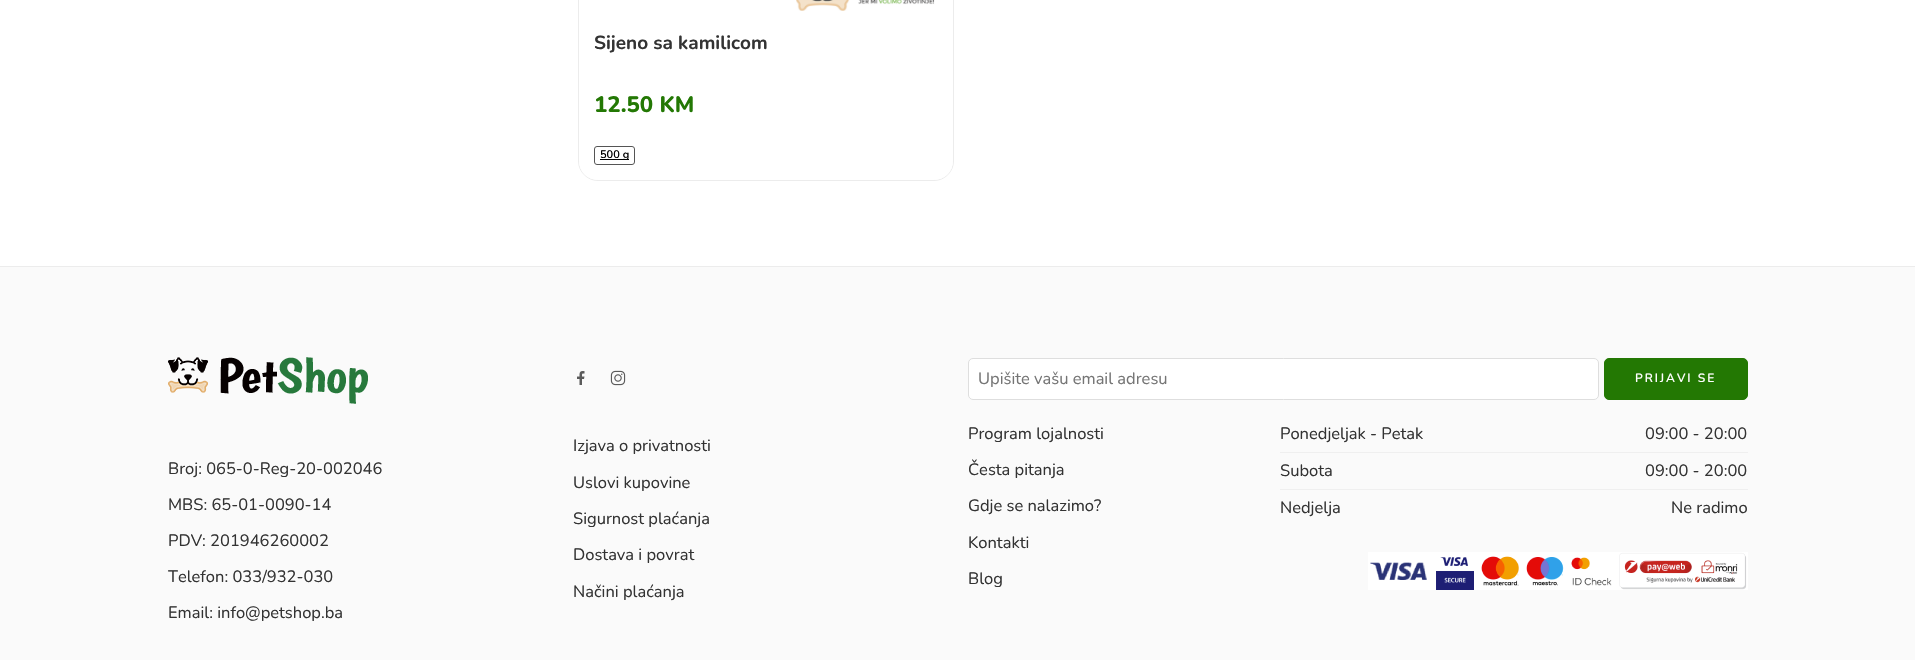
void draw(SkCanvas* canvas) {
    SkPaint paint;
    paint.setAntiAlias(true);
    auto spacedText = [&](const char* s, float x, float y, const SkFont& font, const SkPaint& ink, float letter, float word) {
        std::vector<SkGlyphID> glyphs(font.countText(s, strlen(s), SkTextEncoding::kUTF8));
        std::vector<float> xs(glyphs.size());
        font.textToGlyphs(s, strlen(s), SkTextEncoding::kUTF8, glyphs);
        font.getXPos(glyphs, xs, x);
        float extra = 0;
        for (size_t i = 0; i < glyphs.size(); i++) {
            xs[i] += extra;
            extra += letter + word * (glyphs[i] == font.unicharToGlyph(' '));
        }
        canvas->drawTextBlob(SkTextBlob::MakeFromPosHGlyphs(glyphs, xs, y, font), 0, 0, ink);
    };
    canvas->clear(0xFFFFFFFF);
    paint.setStyle(SkPaint::kStroke_Style);
    paint.setStrokeWidth(1);
    paint.setColor(0xFFECECEC);
    canvas->drawRoundRect(SkRect::MakeXYWH(578.5f, -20.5f, 375, 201), 19.5f, 19.5f, paint);
    canvas->drawImageRect(SkImages::DeferredFromEncodedData(SkData::MakeFromFileName("img1.png")), SkRect::MakeXYWH(796, 0, 139, 11), SkSamplingOptions());
    paint.setStyle(SkPaint::kFill_Style);
    paint.setColor(0xFFFFFFFF);
    canvas->drawPath(SkPathBuilder().moveTo(579, 21).lineTo(953, 21).lineTo(953, 161).cubicTo(953, 171.5f, 944.5f, 180, 934, 180).lineTo(598, 180).cubicTo(587.5f, 180, 579, 171.5f, 579, 161).close().detach(), paint);
    SkFont font1(fontMgr->matchFamilyStyle("Nunito", SkFontStyle::Bold()), 19);
    font1.setSubpixel(true);
    paint.setColor(0xFF333333);
    canvas->drawString("Sijeno sa kamilicom", 594, 49, font1, paint);
    SkFont font2(fontMgr->matchFamilyStyle("Nunito", SkFontStyle(800, SkFontStyle::kNormal_Width, SkFontStyle::kUpright_Slant)), 22.25f);
    font2.setSubpixel(true);
    paint.setColor(0xFF237804);
    canvas->drawString("12.50 KM", 594, 112, font2, paint);
    paint.setStyle(SkPaint::kStroke_Style);
    paint.setColor(0xFF555555);
    canvas->drawRoundRect(SkRect::MakeXYWH(594.5f, 146.5f, 40, 18), 2.5f, 2.5f, paint);
    paint.setStyle(SkPaint::kFill_Style);
    paint.setColor(0xFF000000);
    canvas->drawRect(SkRect::MakeXYWH(600, 159, 29, 1), paint);
    SkFont font3(fontMgr->matchFamilyStyle("Nunito", SkFontStyle(600, SkFontStyle::kNormal_Width, SkFontStyle::kUpright_Slant)), 11);
    font3.setSubpixel(true);
    canvas->drawString("500 g", 600, 158, font3, paint);
    paint.setColor(0xFFFAFAFA);
    canvas->drawRect(SkRect::MakeXYWH(0, 267, 1915, 393), paint);
    paint.setColor(0xFFECECEC);
    canvas->drawRect(SkRect::MakeXYWH(0, 266, 1915, 1), paint);
    canvas->drawImageRect(SkImages::DeferredFromEncodedData(SkData::MakeFromFileName("img2.png")), SkRect::MakeXYWH(168, 357, 200, 47), SkSamplingOptions());
    SkFont font4(fontMgr->matchFamilyStyle("Nunito", SkFontStyle::Normal()), 16.5f);
    font4.setSubpixel(true);
    paint.setColor(0xFF333333);
    canvas->drawString("Broj: 065-0-Reg-20-002046", 168, 474, font4, paint);
    canvas->drawString("MBS: 65-01-0090-14", 168, 510, font4, paint);
    canvas->drawString("PDV: 201946260002", 168, 546, font4, paint);
    canvas->drawString("Telefon: 033/932-030", 168, 582, font4, paint);
    canvas->drawString("Email: info@petshop.ba", 168, 618, font4, paint);
    canvas->drawImageRect(SkImages::DeferredFromEncodedData(SkData::MakeFromFileName("img3.png")), SkRect::MakeXYWH(577, 371, 8, 14), SkSamplingOptions());
    canvas->drawImageRect(SkImages::DeferredFromEncodedData(SkData::MakeFromFileName("img4.png")), SkRect::MakeXYWH(610, 370, 16, 16), SkSamplingOptions());
    canvas->drawString("Izjava o privatnosti", 573, 451, font4, paint);
    canvas->drawString("Uslovi kupovine", 573, 488, font4, paint);
    canvas->drawString("Sigurnost plaćanja", 573, 524, font4, paint);
    canvas->drawString("Dostava i povrat", 573, 560, font4, paint);
    canvas->drawString("Načini plaćanja", 573, 597, font4, paint);
    paint.setColor(0xFFFFFFFF);
    canvas->drawRoundRect(SkRect::MakeXYWH(968.5f, 358.5f, 630, 41), 4.5f, 4.5f, paint);
    paint.setStyle(SkPaint::kStroke_Style);
    paint.setColor(0xFFDEDEDE);
    canvas->drawRoundRect(SkRect::MakeXYWH(968.5f, 358.5f, 630, 41), 4.5f, 4.5f, paint);
    paint.setStyle(SkPaint::kFill_Style);
    paint.setColor(0xFF757575);
    canvas->drawString("Upišite vašu email adresu", 978, 384, font4, paint);
    paint.setColor(0xFF237803);
    canvas->drawRoundRect(SkRect::MakeXYWH(1604.5f, 358.5f, 143, 41), 4.5f, 4.5f, paint);
    paint.setStyle(SkPaint::kStroke_Style);
    canvas->drawRoundRect(SkRect::MakeXYWH(1604.5f, 358.5f, 143, 41), 4.5f, 4.5f, paint);
    SkFont font5(fontMgr->matchFamilyStyle("Nunito", SkFontStyle(600, SkFontStyle::kNormal_Width, SkFontStyle::kUpright_Slant)), 12);
    font5.setSubpixel(true);
    paint.setStyle(SkPaint::kFill_Style);
    paint.setColor(0xFFFFFFFF);
    spacedText("PRIJAVI SE", 1635, 382, font5, paint, 2, 0);
    paint.setColor(0xFF333333);
    canvas->drawString("Program lojalnosti", 968, 439, font4, paint);
    canvas->drawString("Česta pitanja", 968, 475, font4, paint);
    canvas->drawString("Gdje se nalazimo?", 968, 511, font4, paint);
    canvas->drawString("Kontakti", 968, 548, font4, paint);
    canvas->drawString("Blog", 968, 584, font4, paint);
    paint.setColor(0xFFEFEFEF);
    canvas->drawRect(SkRect::MakeXYWH(1280, 452, 468, 1), paint);
    paint.setColor(0xFF333333);
    canvas->drawString("Ponedjeljak - Petak", 1280, 439, font4, paint);
    canvas->drawString("09:00 - 20:00", 1645, 439, font4, paint);
    paint.setColor(0xFFEFEFEF);
    canvas->drawRect(SkRect::MakeXYWH(1280, 489, 468, 1), paint);
    paint.setColor(0xFF333333);
    canvas->drawString("Subota", 1280, 476, font4, paint);
    canvas->drawString("09:00 - 20:00", 1645, 476, font4, paint);
    canvas->drawString("Nedjelja", 1280, 513, font4, paint);
    canvas->drawString("Ne radimo", 1671, 513, font4, paint);
    canvas->drawImageRect(SkImages::DeferredFromEncodedData(SkData::MakeFromFileName("img5.png")), SkRect::MakeXYWH(1368, 552, 380, 38), SkSamplingOptions());
}
